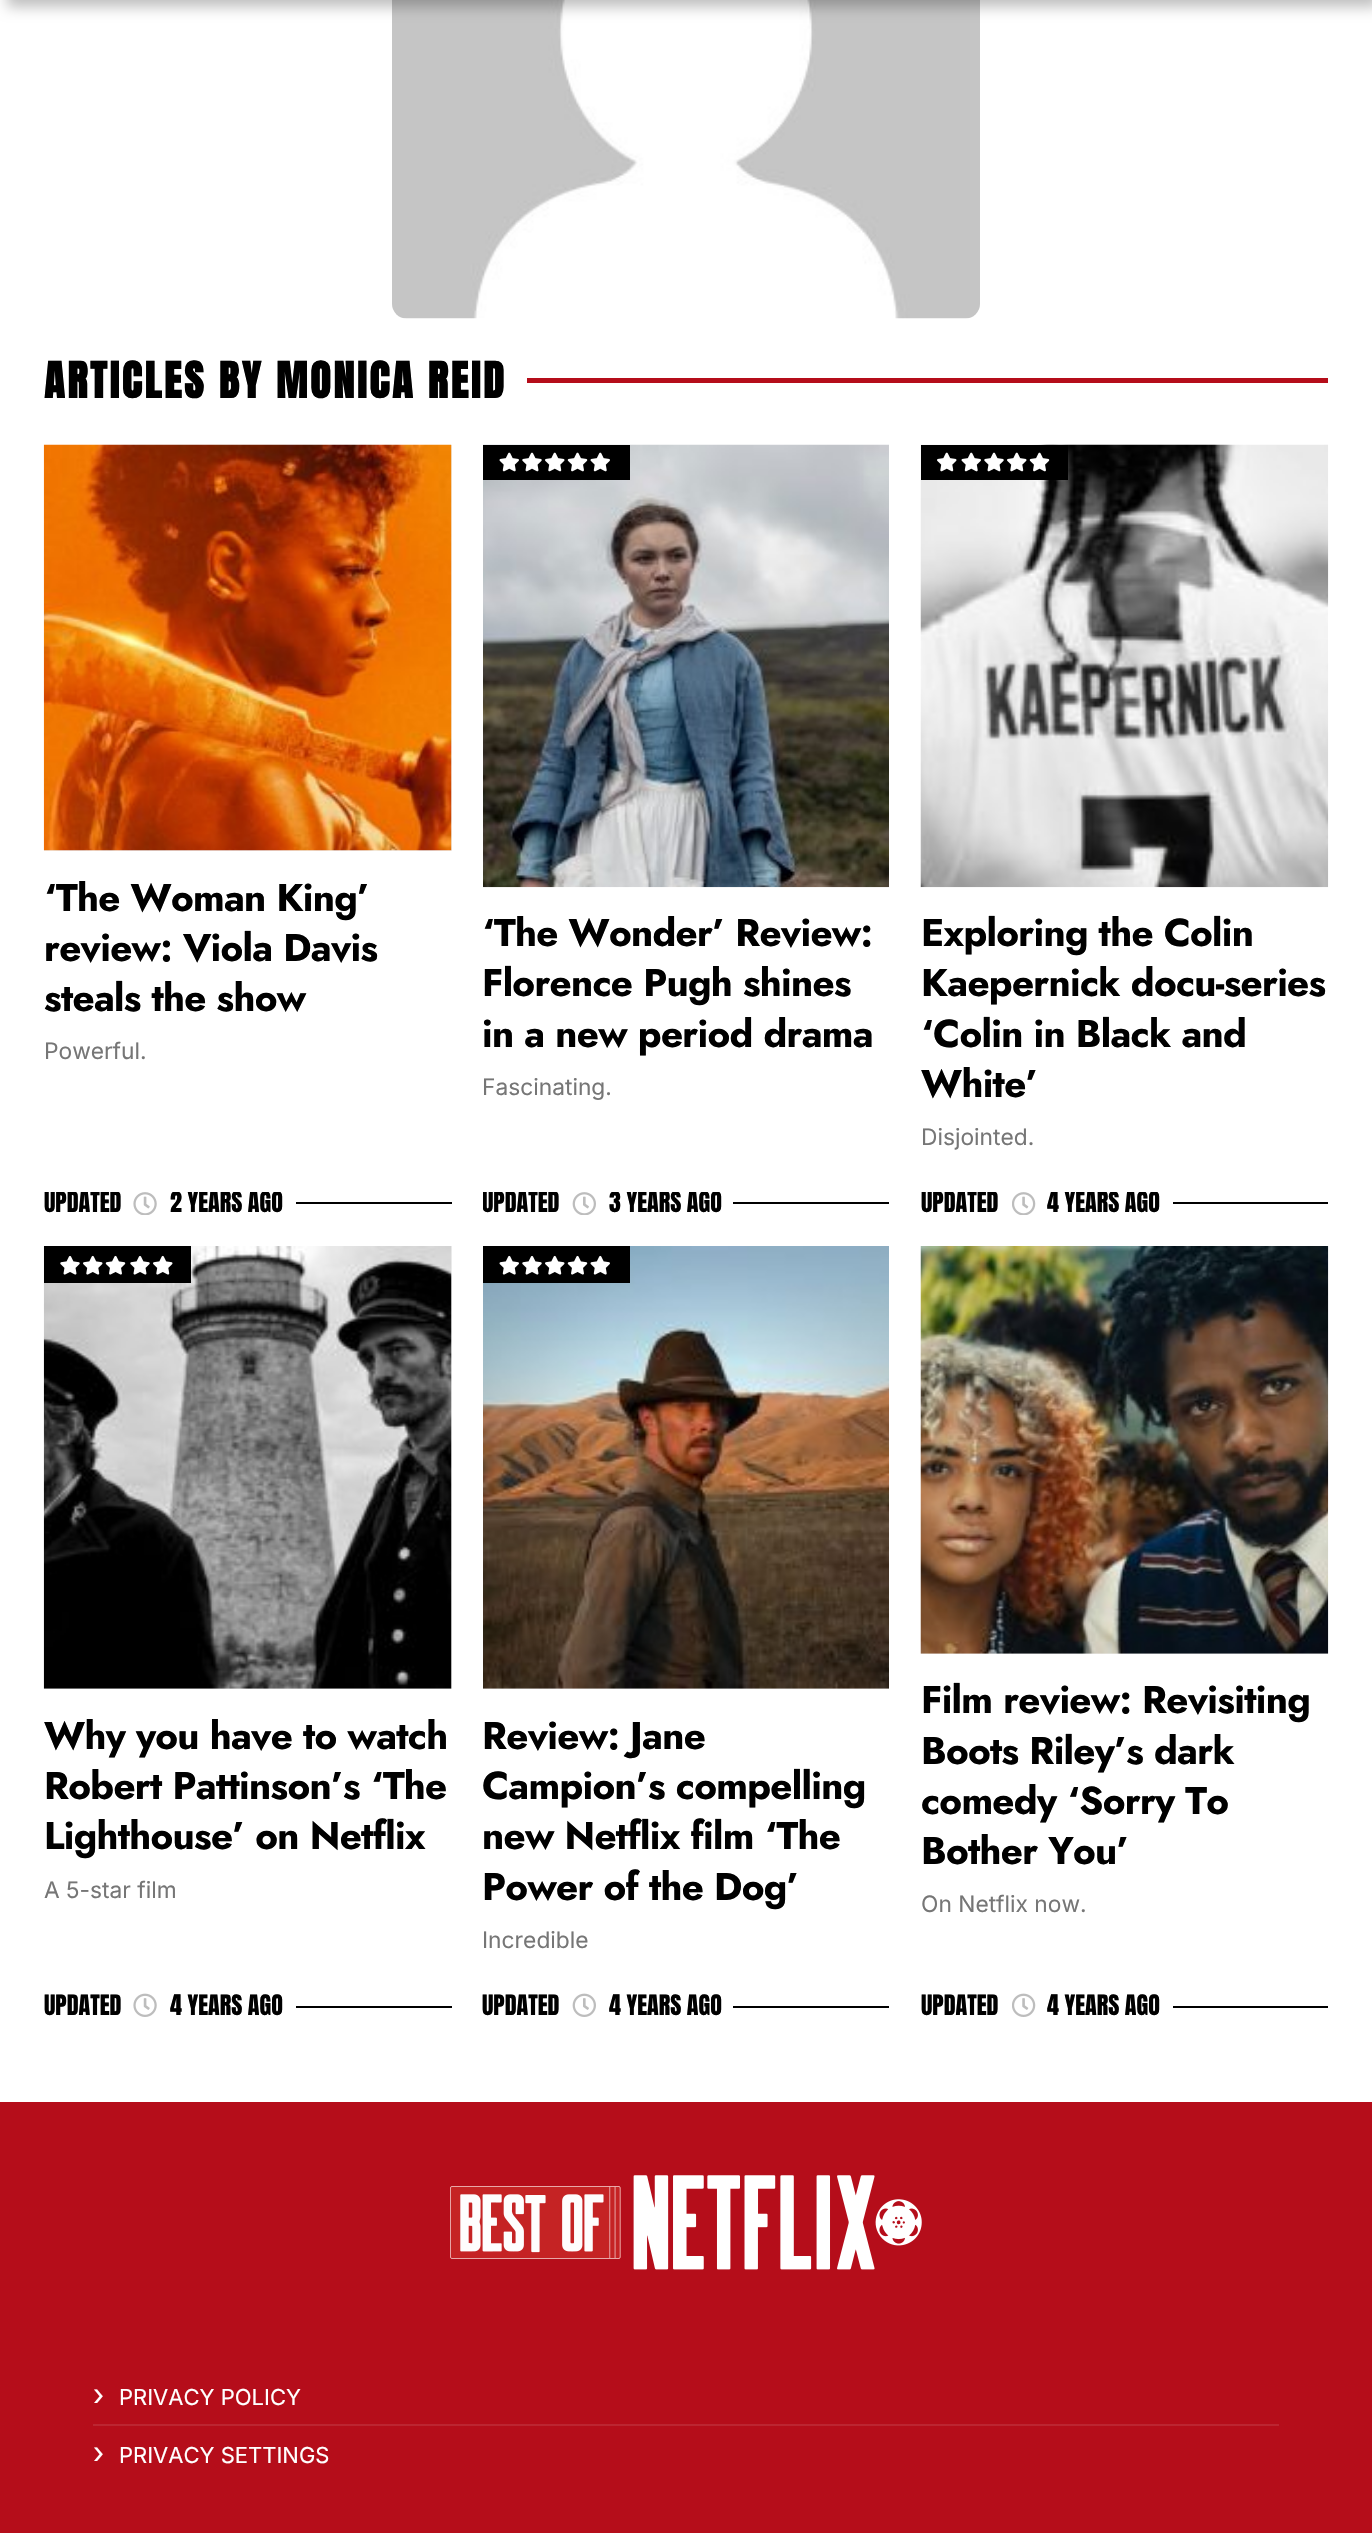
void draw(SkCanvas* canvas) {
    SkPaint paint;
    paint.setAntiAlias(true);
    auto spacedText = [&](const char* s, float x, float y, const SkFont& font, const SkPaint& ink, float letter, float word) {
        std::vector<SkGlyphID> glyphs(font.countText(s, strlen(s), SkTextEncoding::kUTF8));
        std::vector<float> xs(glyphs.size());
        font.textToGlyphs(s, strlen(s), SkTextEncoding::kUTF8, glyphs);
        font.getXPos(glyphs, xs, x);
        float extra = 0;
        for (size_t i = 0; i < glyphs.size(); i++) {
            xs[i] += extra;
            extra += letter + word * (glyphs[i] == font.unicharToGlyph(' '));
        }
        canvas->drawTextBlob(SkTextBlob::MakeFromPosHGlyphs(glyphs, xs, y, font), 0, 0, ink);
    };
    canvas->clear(0xFFFFFFFF);
    canvas->drawImageRect(SkImages::DeferredFromEncodedData(SkData::MakeFromFileName("img1.png")), SkRect::MakeXYWH(392, 0, 588, 319), SkSamplingOptions());
    paint.setColor(0x40000000);
    paint.setMaskFilter(SkMaskFilter::MakeBlur(kNormal_SkBlurStyle, 7));
    canvas->drawRect(SkRect::MakeXYWH(7, -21, 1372, 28), paint);
    paint.setMaskFilter(nullptr);
    SkFont font1(fontMgr->matchFamilyStyle("Anton", SkFontStyle::Bold()), 42);
    font1.setSubpixel(true);
    paint.setColor(0xFF000000);
    spacedText("ARTICLES BY MONICA REID", 44, 398, font1, paint, 2.8f, 0);
    paint.setColor(0xFFB50D1A);
    canvas->drawRect(SkRect::MakeXYWH(527, 378, 801, 5), paint);
    paint.setColor(0xFFF1F1F1);
    canvas->drawRect(SkRect::MakeXYWH(44, 445, 408, 406), paint);
    canvas->drawImageRect(SkImages::DeferredFromEncodedData(SkData::MakeFromFileName("img2.png")), SkRect::MakeXYWH(43, 444, 409, 407), SkSamplingOptions());
    SkFont font2(fontMgr->matchFamilyStyle("Jost", SkFontStyle::Bold()), 38.6f);
    font2.setSubpixel(true);
    paint.setColor(0xFF000000);
    spacedText("‘The Woman King’", 44, 911, font2, paint, -0.7f, 0);
    spacedText("review: Viola Davis", 44, 961, font2, paint, -0.7f, 0);
    spacedText("steals the show", 44, 1011, font2, paint, -0.7f, 0);
    SkFont font3(fontMgr->matchFamilyStyle("Inter", SkFontStyle::Normal()), 22.75f);
    font3.setSubpixel(true);
    paint.setColor(0xFF767676);
    canvas->drawString("Powerful.", 44, 1059, font3, paint);
    canvas->save();
    canvas->clipRect(SkRect::MakeXYWH(44, 1192, 408, 23));
    SkFont font4(fontMgr->matchFamilyStyle("Anton", SkFontStyle::Normal()), 24);
    font4.setSubpixel(true);
    paint.setColor(0xFF000000);
    canvas->drawString("UPDATED", 44, 1212, font4, paint);
    canvas->restore();
    canvas->drawImageRect(SkImages::DeferredFromEncodedData(SkData::MakeFromFileName("img3.png")), SkRect::MakeXYWH(133, 1192, 24, 23), SkSamplingOptions());
    canvas->save();
    canvas->clipRect(SkRect::MakeXYWH(170, 1192, 114, 23));
    canvas->drawString("2 YEARS AGO", 170, 1212, font4, paint);
    canvas->restore();
    canvas->drawRect(SkRect::MakeXYWH(296, 1202, 156, 2), paint);
    canvas->drawImageRect(SkImages::DeferredFromEncodedData(SkData::MakeFromFileName("img4.png")), SkRect::MakeXYWH(483, 444, 406, 444), SkSamplingOptions());
    canvas->drawRect(SkRect::MakeXYWH(483, 445, 147, 35), paint);
    canvas->drawImageRect(SkImages::DeferredFromEncodedData(SkData::MakeFromFileName("img5.png")), SkRect::MakeXYWH(499, 452, 20, 20), SkSamplingOptions());
    canvas->drawImageRect(SkImages::DeferredFromEncodedData(SkData::MakeFromFileName("img6.png")), SkRect::MakeXYWH(522, 452, 20, 20), SkSamplingOptions());
    canvas->drawImageRect(SkImages::DeferredFromEncodedData(SkData::MakeFromFileName("img7.png")), SkRect::MakeXYWH(545, 452, 20, 20), SkSamplingOptions());
    canvas->drawImageRect(SkImages::DeferredFromEncodedData(SkData::MakeFromFileName("img8.png")), SkRect::MakeXYWH(567, 452, 21, 20), SkSamplingOptions());
    canvas->drawImageRect(SkImages::DeferredFromEncodedData(SkData::MakeFromFileName("img5.png")), SkRect::MakeXYWH(590, 452, 20, 20), SkSamplingOptions());
    spacedText("‘The Wonder’ Review:", 482, 946, font2, paint, -0.7f, 0);
    spacedText("Florence Pugh shines", 482, 996, font2, paint, -0.7f, 0);
    spacedText("in a new period drama", 482, 1047, font2, paint, -0.7f, 0);
    paint.setColor(0xFF767676);
    canvas->drawString("Fascinating.", 482, 1095, font3, paint);
    canvas->save();
    canvas->clipRect(SkRect::MakeXYWH(483, 1192, 406, 23));
    paint.setColor(0xFF000000);
    canvas->drawString("UPDATED", 482, 1212, font4, paint);
    canvas->restore();
    canvas->drawImageRect(SkImages::DeferredFromEncodedData(SkData::MakeFromFileName("img9.png")), SkRect::MakeXYWH(572, 1192, 24, 23), SkSamplingOptions());
    canvas->save();
    canvas->clipRect(SkRect::MakeXYWH(609, 1192, 114, 23));
    canvas->drawString("3 YEARS AGO", 609, 1212, font4, paint);
    canvas->restore();
    canvas->drawRect(SkRect::MakeXYWH(733, 1202, 156, 2), paint);
    canvas->drawImageRect(SkImages::DeferredFromEncodedData(SkData::MakeFromFileName("img10.png")), SkRect::MakeXYWH(920, 444, 409, 444), SkSamplingOptions());
    canvas->drawRect(SkRect::MakeXYWH(921, 445, 147, 35), paint);
    canvas->drawImageRect(SkImages::DeferredFromEncodedData(SkData::MakeFromFileName("img7.png")), SkRect::MakeXYWH(937, 452, 20, 20), SkSamplingOptions());
    canvas->drawImageRect(SkImages::DeferredFromEncodedData(SkData::MakeFromFileName("img5.png")), SkRect::MakeXYWH(961, 452, 20, 20), SkSamplingOptions());
    canvas->drawImageRect(SkImages::DeferredFromEncodedData(SkData::MakeFromFileName("img6.png")), SkRect::MakeXYWH(984, 452, 20, 20), SkSamplingOptions());
    canvas->drawImageRect(SkImages::DeferredFromEncodedData(SkData::MakeFromFileName("img7.png")), SkRect::MakeXYWH(1007, 452, 20, 20), SkSamplingOptions());
    canvas->drawImageRect(SkImages::DeferredFromEncodedData(SkData::MakeFromFileName("img8.png")), SkRect::MakeXYWH(1029, 452, 21, 20), SkSamplingOptions());
    spacedText("Exploring the Colin", 921, 946, font2, paint, -0.7f, 0);
    spacedText("Kaepernick docu-series", 921, 996, font2, paint, -0.7f, 0);
    spacedText("‘Colin in Black and", 921, 1047, font2, paint, -0.7f, 0);
    spacedText("White’", 921, 1097, font2, paint, -0.7f, 0);
    paint.setColor(0xFF767676);
    canvas->drawString("Disjointed.", 921, 1145, font3, paint);
    canvas->save();
    canvas->clipRect(SkRect::MakeXYWH(921, 1192, 407, 23));
    paint.setColor(0xFF000000);
    canvas->drawString("UPDATED", 921, 1212, font4, paint);
    canvas->restore();
    canvas->drawImageRect(SkImages::DeferredFromEncodedData(SkData::MakeFromFileName("img11.png")), SkRect::MakeXYWH(1012, 1192, 24, 23), SkSamplingOptions());
    canvas->save();
    canvas->clipRect(SkRect::MakeXYWH(1047, 1192, 113, 23));
    canvas->drawString("4 YEARS AGO", 1047, 1212, font4, paint);
    canvas->restore();
    canvas->drawRect(SkRect::MakeXYWH(1173, 1202, 155, 2), paint);
    paint.setColor(0xFFF1F1F1);
    canvas->drawRect(SkRect::MakeXYWH(44, 1246, 408, 443), paint);
    canvas->drawImageRect(SkImages::DeferredFromEncodedData(SkData::MakeFromFileName("img12.png")), SkRect::MakeXYWH(43, 1246, 409, 443), SkSamplingOptions());
    paint.setColor(0xFF000000);
    canvas->drawRect(SkRect::MakeXYWH(44, 1246, 147, 37), paint);
    canvas->drawImageRect(SkImages::DeferredFromEncodedData(SkData::MakeFromFileName("img13.png")), SkRect::MakeXYWH(60, 1256, 20, 19), SkSamplingOptions());
    canvas->drawImageRect(SkImages::DeferredFromEncodedData(SkData::MakeFromFileName("img14.png")), SkRect::MakeXYWH(83, 1255, 20, 20), SkSamplingOptions());
    canvas->drawImageRect(SkImages::DeferredFromEncodedData(SkData::MakeFromFileName("img15.png")), SkRect::MakeXYWH(105, 1255, 21, 20), SkSamplingOptions());
    canvas->drawImageRect(SkImages::DeferredFromEncodedData(SkData::MakeFromFileName("img13.png")), SkRect::MakeXYWH(130, 1256, 20, 19), SkSamplingOptions());
    canvas->drawImageRect(SkImages::DeferredFromEncodedData(SkData::MakeFromFileName("img14.png")), SkRect::MakeXYWH(153, 1255, 20, 20), SkSamplingOptions());
    spacedText("Why you have to watch", 44, 1749, font2, paint, -0.7f, 0);
    spacedText("Robert Pattinson’s ‘The", 44, 1799, font2, paint, -0.7f, 0);
    spacedText("Lighthouse’ on Netflix", 44, 1849, font2, paint, -0.7f, 0);
    paint.setColor(0xFF767676);
    canvas->drawString("A 5-star film", 44, 1898, font3, paint);
    paint.setColor(0xFF000000);
    canvas->drawString("UPDATED", 44, 2015, font4, paint);
    canvas->drawImageRect(SkImages::DeferredFromEncodedData(SkData::MakeFromFileName("img16.png")), SkRect::MakeXYWH(133, 1993, 24, 24), SkSamplingOptions());
    canvas->drawString("4 YEARS AGO", 170, 2015, font4, paint);
    canvas->drawRect(SkRect::MakeXYWH(296, 2006, 156, 2), paint);
    paint.setColor(0xFFF1F1F1);
    canvas->drawRect(SkRect::MakeXYWH(483, 1688, 406, 1), paint);
    canvas->drawImageRect(SkImages::DeferredFromEncodedData(SkData::MakeFromFileName("img17.png")), SkRect::MakeXYWH(483, 1246, 406, 443), SkSamplingOptions());
    paint.setColor(0xFF000000);
    canvas->drawRect(SkRect::MakeXYWH(483, 1246, 147, 37), paint);
    canvas->drawImageRect(SkImages::DeferredFromEncodedData(SkData::MakeFromFileName("img18.png")), SkRect::MakeXYWH(499, 1255, 20, 20), SkSamplingOptions());
    canvas->drawImageRect(SkImages::DeferredFromEncodedData(SkData::MakeFromFileName("img13.png")), SkRect::MakeXYWH(522, 1256, 20, 19), SkSamplingOptions());
    canvas->drawImageRect(SkImages::DeferredFromEncodedData(SkData::MakeFromFileName("img14.png")), SkRect::MakeXYWH(545, 1255, 20, 20), SkSamplingOptions());
    canvas->drawImageRect(SkImages::DeferredFromEncodedData(SkData::MakeFromFileName("img15.png")), SkRect::MakeXYWH(567, 1255, 21, 20), SkSamplingOptions());
    canvas->drawImageRect(SkImages::DeferredFromEncodedData(SkData::MakeFromFileName("img18.png")), SkRect::MakeXYWH(590, 1255, 20, 20), SkSamplingOptions());
    spacedText("Review: Jane", 482, 1749, font2, paint, -0.7f, 0);
    spacedText("Campion’s compelling", 482, 1799, font2, paint, -0.7f, 0);
    spacedText("new Netflix film ‘The", 482, 1849, font2, paint, -0.7f, 0);
    spacedText("Power of the Dog’", 482, 1900, font2, paint, -0.7f, 0);
    paint.setColor(0xFF767676);
    canvas->drawString("Incredible", 482, 1948, font3, paint);
    paint.setColor(0xFF000000);
    canvas->drawString("UPDATED", 482, 2015, font4, paint);
    canvas->drawImageRect(SkImages::DeferredFromEncodedData(SkData::MakeFromFileName("img19.png")), SkRect::MakeXYWH(572, 1993, 24, 24), SkSamplingOptions());
    canvas->save();
    canvas->clipRect(SkRect::MakeXYWH(609, 1993, 114, 25));
    canvas->drawString("4 YEARS AGO", 609, 2015, font4, paint);
    canvas->restore();
    canvas->drawRect(SkRect::MakeXYWH(733, 2006, 156, 2), paint);
    paint.setColor(0xFFF1F1F1);
    canvas->drawRect(SkRect::MakeXYWH(921, 1653, 407, 1), paint);
    canvas->drawImageRect(SkImages::DeferredFromEncodedData(SkData::MakeFromFileName("img20.png")), SkRect::MakeXYWH(920, 1246, 409, 408), SkSamplingOptions());
    paint.setColor(0xFF000000);
    spacedText("Film review: Revisiting", 921, 1713, font2, paint, -0.7f, 0);
    spacedText("Boots Riley’s dark", 921, 1764, font2, paint, -0.7f, 0);
    spacedText("comedy ‘Sorry To", 921, 1814, font2, paint, -0.7f, 0);
    spacedText("Bother You’", 921, 1864, font2, paint, -0.7f, 0);
    paint.setColor(0xFF767676);
    canvas->drawString("On Netflix now.", 921, 1912, font3, paint);
    paint.setColor(0xFF000000);
    canvas->drawString("UPDATED", 921, 2015, font4, paint);
    canvas->drawImageRect(SkImages::DeferredFromEncodedData(SkData::MakeFromFileName("img21.png")), SkRect::MakeXYWH(1012, 1993, 24, 24), SkSamplingOptions());
    canvas->drawString("4 YEARS AGO", 1047, 2015, font4, paint);
    canvas->drawRect(SkRect::MakeXYWH(1173, 2006, 155, 2), paint);
    paint.setColor(0xFFB50D1A);
    canvas->drawRect(SkRect::MakeXYWH(0, 2102, 1372, 431), paint);
    canvas->drawImageRect(SkImages::DeferredFromEncodedData(SkData::MakeFromFileName("img22.png")), SkRect::MakeXYWH(450, 2175, 472, 95), SkSamplingOptions());
    paint.setColor(0xFFBC2531);
    canvas->drawRect(SkRect::MakeXYWH(93, 2424, 1186, 2), paint);
    SkFont font5(fontMgr->matchFamilyStyle("Inter", SkFontStyle::Normal()), 29);
    font5.setSubpixel(true);
    paint.setColor(0xFFFFFFFF);
    canvas->drawString("›", 93, 2405, font5, paint);
    SkFont font6(fontMgr->matchFamilyStyle("Inter", SkFontStyle::Normal()), 22);
    font6.setSubpixel(true);
    canvas->drawString("PRIVACY POLICY", 119, 2405, font6, paint);
    canvas->drawString("›", 93, 2463, font5, paint);
    canvas->drawString("PRIVACY SETTINGS", 119, 2463, font6, paint);
}
